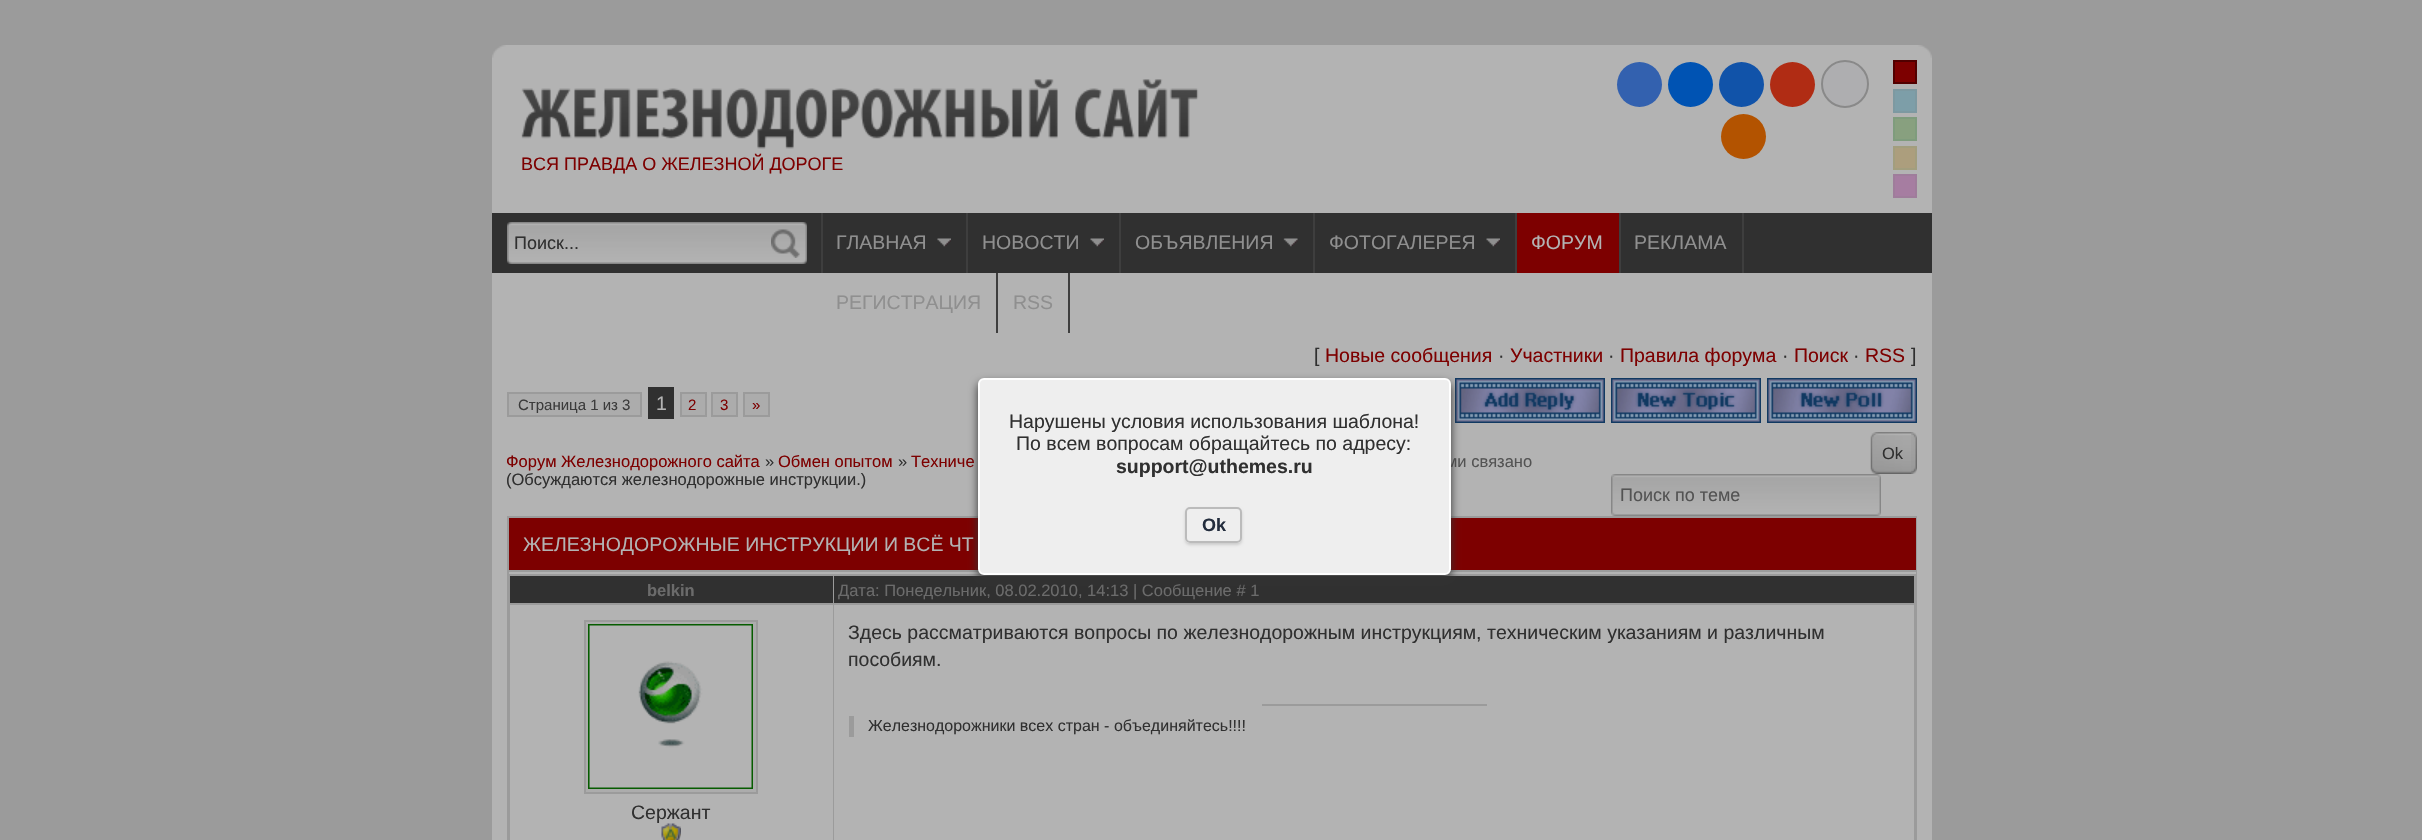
void draw(SkCanvas* canvas) {
    SkPaint paint;
    paint.setAntiAlias(true);
    canvas->clear(0xFF9B9B9B);
    paint.setColor(0xFFB3B3B3);
    canvas->drawRect(SkRect::MakeXYWH(492, 58, 1440, 782), paint);
    canvas->drawImageRect(SkImages::DeferredFromEncodedData(SkData::MakeFromFileName("img1.png")), SkRect::MakeXYWH(492, 45, 1440, 13), SkSamplingOptions());
    canvas->drawImageRect(SkImages::DeferredFromEncodedData(SkData::MakeFromFileName("img2.png")), SkRect::MakeXYWH(521, 79, 537, 70), SkSamplingOptions());
    canvas->drawImageRect(SkImages::DeferredFromEncodedData(SkData::MakeFromFileName("img3.png")), SkRect::MakeXYWH(1075, 79, 124, 60), SkSamplingOptions());
    SkFont font1(fontMgr->matchFamilyStyle("Liberation Sans", SkFontStyle::Normal()), 18);
    font1.setSubpixel(true);
    paint.setColor(0xFF7D0000);
    canvas->drawString("ВСЯ ПРАВДА О ЖЕЛЕЗНОЙ ДОРОГЕ", 521, 170, font1, paint);
    paint.setColor(0xFF3361AF);
    canvas->drawCircle(1639.5f, 84.5f, 22.5f, paint);
    paint.setColor(0xFF0053B3);
    canvas->drawCircle(1690.5f, 84.5f, 22.5f, paint);
    paint.setColor(0xFF1153A9);
    canvas->drawCircle(1741.5f, 84.5f, 22.5f, paint);
    paint.setColor(0xFFB02C14);
    canvas->drawCircle(1792.5f, 84.5f, 22.5f, paint);
    paint.setColor(0xFFAEAEB0);
    canvas->drawCircle(1845, 84, 23, paint);
    paint.setStyle(SkPaint::kStroke_Style);
    paint.setStrokeWidth(2);
    paint.setColor(0xFF898989);
    canvas->drawCircle(1845, 84, 23, paint);
    paint.setStyle(SkPaint::kFill_Style);
    paint.setColor(0xFFB35300);
    canvas->drawCircle(1743.5f, 136.5f, 22.5f, paint);
    paint.setColor(0xFF7D0000);
    canvas->drawRect(SkRect::MakeXYWH(1894, 61, 22, 22), paint);
    paint.setStyle(SkPaint::kStroke_Style);
    paint.setColor(0xFF510000);
    canvas->drawRect(SkRect::MakeXYWH(1894, 61, 22, 22), paint);
    paint.setStyle(SkPaint::kFill_Style);
    paint.setColor(0xFF7D9EA8);
    canvas->drawRect(SkRect::MakeXYWH(1894, 90, 22, 22), paint);
    paint.setStyle(SkPaint::kStroke_Style);
    paint.setColor(0xFF7D99A1);
    canvas->drawRect(SkRect::MakeXYWH(1894, 90, 22, 22), paint);
    paint.setStyle(SkPaint::kFill_Style);
    paint.setColor(0xFF88A07F);
    canvas->drawRect(SkRect::MakeXYWH(1894, 118, 22, 22), paint);
    paint.setStyle(SkPaint::kStroke_Style);
    paint.setColor(0xFF7F9C7D);
    canvas->drawRect(SkRect::MakeXYWH(1894, 118, 22, 22), paint);
    paint.setStyle(SkPaint::kFill_Style);
    paint.setColor(0xFFAC9E7D);
    canvas->drawRect(SkRect::MakeXYWH(1894, 147, 22, 22), paint);
    paint.setStyle(SkPaint::kStroke_Style);
    paint.setColor(0xFFA29E7E);
    canvas->drawRect(SkRect::MakeXYWH(1894, 147, 22, 22), paint);
    paint.setStyle(SkPaint::kFill_Style);
    paint.setColor(0xFFA67DA1);
    canvas->drawRect(SkRect::MakeXYWH(1894, 175, 22, 22), paint);
    paint.setStyle(SkPaint::kStroke_Style);
    paint.setColor(0xFF9F7D9B);
    canvas->drawRect(SkRect::MakeXYWH(1894, 175, 22, 22), paint);
    paint.setStyle(SkPaint::kFill_Style);
    paint.setColor(0xFF303030);
    canvas->drawRect(SkRect::MakeXYWH(492, 213, 1440, 60), paint);
    paint.setColor(0xFF3E3E3E);
    canvas->drawRect(SkRect::MakeXYWH(821, 213, 2, 60), paint);
    canvas->drawImageRect(SkImages::DeferredFromEncodedData(SkData::MakeFromFileName("img4.png")), SkRect::MakeXYWH(507, 222, 300, 42), SkSamplingOptions());
    paint.setColor(0xFF303030);
    canvas->drawString("Поиск...", 514, 249, font1, paint);
    canvas->drawImageRect(SkImages::DeferredFromEncodedData(SkData::MakeFromFileName("img5.png")), SkRect::MakeXYWH(771, 229, 29, 29), SkSamplingOptions());
    paint.setColor(0xFF3E3E3E);
    canvas->drawRect(SkRect::MakeXYWH(966, 213, 2, 60), paint);
    SkFont font2(fontMgr->matchFamilyStyle("Liberation Sans", SkFontStyle::Normal()), 19.5f);
    font2.setSubpixel(true);
    paint.setColor(0xFF8F8F8F);
    canvas->drawString("ГЛАВНАЯ", 836, 249, font2, paint);
    canvas->drawImageRect(SkImages::DeferredFromEncodedData(SkData::MakeFromFileName("img6.png")), SkRect::MakeXYWH(937, 238, 14, 9), SkSamplingOptions());
    paint.setColor(0xFF3E3E3E);
    canvas->drawRect(SkRect::MakeXYWH(1119, 213, 2, 60), paint);
    paint.setColor(0xFF8F8F8F);
    canvas->drawString("НОВОСТИ", 982, 249, font2, paint);
    canvas->drawImageRect(SkImages::DeferredFromEncodedData(SkData::MakeFromFileName("img7.png")), SkRect::MakeXYWH(1090, 238, 14, 9), SkSamplingOptions());
    paint.setColor(0xFF3E3E3E);
    canvas->drawRect(SkRect::MakeXYWH(1313, 213, 2, 60), paint);
    paint.setColor(0xFF8F8F8F);
    canvas->drawString("ОБЪЯВЛЕНИЯ", 1135, 249, font2, paint);
    canvas->drawImageRect(SkImages::DeferredFromEncodedData(SkData::MakeFromFileName("img8.png")), SkRect::MakeXYWH(1283, 238, 15, 9), SkSamplingOptions());
    paint.setColor(0xFF3E3E3E);
    canvas->drawRect(SkRect::MakeXYWH(1515, 213, 2, 60), paint);
    paint.setColor(0xFF8F8F8F);
    canvas->drawString("ФОТОГАЛЕРЕЯ", 1329, 249, font2, paint);
    canvas->drawImageRect(SkImages::DeferredFromEncodedData(SkData::MakeFromFileName("img7.png")), SkRect::MakeXYWH(1486, 238, 14, 9), SkSamplingOptions());
    paint.setColor(0xFF7D0000);
    canvas->drawRect(SkRect::MakeXYWH(1517, 213, 102, 60), paint);
    paint.setColor(0xFF3E3E3E);
    canvas->drawRect(SkRect::MakeXYWH(1619, 213, 2, 60), paint);
    paint.setColor(0xFFB3B3B3);
    canvas->drawString("ФОРУМ", 1531, 249, font2, paint);
    paint.setColor(0xFF3E3E3E);
    canvas->drawRect(SkRect::MakeXYWH(1742, 213, 2, 60), paint);
    paint.setColor(0xFF8F8F8F);
    canvas->drawString("РЕКЛАМА", 1634, 249, font2, paint);
    paint.setColor(0xFF3E3E3E);
    canvas->drawRect(SkRect::MakeXYWH(996, 273, 2, 60), paint);
    paint.setColor(0xFF8F8F8F);
    canvas->drawString("РЕГИСТРАЦИЯ", 836, 309, font2, paint);
    paint.setColor(0xFF3E3E3E);
    canvas->drawRect(SkRect::MakeXYWH(1068, 273, 2, 60), paint);
    paint.setColor(0xFF8F8F8F);
    canvas->drawString("RSS", 1013, 309, font2, paint);
    paint.setColor(0xFF303030);
    canvas->drawString("[", 1314, 362, font2, paint);
    paint.setColor(0xFF7D0000);
    canvas->drawString("Новые сообщения", 1325, 362, font2, paint);
    paint.setColor(0xFF303030);
    canvas->drawString("·", 1498, 362, font2, paint);
    paint.setColor(0xFF7D0000);
    canvas->drawString("Участники", 1510, 362, font2, paint);
    paint.setColor(0xFF303030);
    canvas->drawString("·", 1608, 362, font2, paint);
    paint.setColor(0xFF7D0000);
    canvas->drawString("Правила форума", 1620, 362, font2, paint);
    paint.setColor(0xFF303030);
    canvas->drawString("·", 1782, 362, font2, paint);
    paint.setColor(0xFF7D0000);
    canvas->drawString("Поиск", 1794, 362, font2, paint);
    paint.setColor(0xFF303030);
    canvas->drawString("·", 1853, 362, font2, paint);
    paint.setColor(0xFF7D0000);
    canvas->drawString("RSS", 1865, 362, font2, paint);
    paint.setColor(0xFF303030);
    canvas->drawString("]", 1911, 362, font2, paint);
    paint.setColor(0xFFACACAC);
    canvas->drawRect(SkRect::MakeXYWH(508, 393, 133, 23), paint);
    paint.setStyle(SkPaint::kStroke_Style);
    paint.setColor(0xFF9B9B9B);
    canvas->drawRect(SkRect::MakeXYWH(508, 393, 133, 23), paint);
    SkFont font3(fontMgr->matchFamilyStyle("Liberation Sans", SkFontStyle::Normal()), 15);
    font3.setSubpixel(true);
    paint.setStyle(SkPaint::kFill_Style);
    paint.setColor(0xFF3B3B3B);
    canvas->drawString("Страница 1 из 3", 518, 410, font3, paint);
    paint.setColor(0xFF303030);
    canvas->drawRect(SkRect::MakeXYWH(648, 387, 26, 32), paint);
    paint.setColor(0xFFB3B3B3);
    canvas->drawString("1", 656, 410, font2, paint);
    paint.setColor(0xFFACACAC);
    canvas->drawRect(SkRect::MakeXYWH(681, 393, 25, 23), paint);
    paint.setStyle(SkPaint::kStroke_Style);
    paint.setColor(0xFF9B9B9B);
    canvas->drawRect(SkRect::MakeXYWH(681, 393, 25, 23), paint);
    paint.setStyle(SkPaint::kFill_Style);
    paint.setColor(0xFF7D0000);
    canvas->drawString("2", 688, 410, font3, paint);
    paint.setColor(0xFFACACAC);
    canvas->drawRect(SkRect::MakeXYWH(712, 393, 25, 23), paint);
    paint.setStyle(SkPaint::kStroke_Style);
    paint.setColor(0xFF9B9B9B);
    canvas->drawRect(SkRect::MakeXYWH(712, 393, 25, 23), paint);
    paint.setStyle(SkPaint::kFill_Style);
    paint.setColor(0xFF7D0000);
    canvas->drawString("3", 720, 410, font3, paint);
    paint.setColor(0xFFACACAC);
    canvas->drawRect(SkRect::MakeXYWH(744, 393, 25, 23), paint);
    paint.setStyle(SkPaint::kStroke_Style);
    paint.setColor(0xFF9B9B9B);
    canvas->drawRect(SkRect::MakeXYWH(744, 393, 25, 23), paint);
    paint.setStyle(SkPaint::kFill_Style);
    paint.setColor(0xFF7D0000);
    canvas->drawString("»", 752, 410, font3, paint);
    canvas->drawImageRect(SkImages::DeferredFromEncodedData(SkData::MakeFromFileName("img9.png")), SkRect::MakeXYWH(1455, 378, 150, 45), SkSamplingOptions());
    canvas->drawImageRect(SkImages::DeferredFromEncodedData(SkData::MakeFromFileName("img10.png")), SkRect::MakeXYWH(1611, 378, 150, 45), SkSamplingOptions());
    canvas->drawImageRect(SkImages::DeferredFromEncodedData(SkData::MakeFromFileName("img11.png")), SkRect::MakeXYWH(1767, 378, 150, 45), SkSamplingOptions());
    SkFont font4(fontMgr->matchFamilyStyle("Liberation Sans", SkFontStyle::Normal()), 16.5f);
    font4.setSubpixel(true);
    canvas->drawString("Форум Железнодорожного сайта", 506, 467, font4, paint);
    paint.setColor(0xFF303030);
    canvas->drawString("»", 765, 467, font4, paint);
    paint.setColor(0xFF7D0000);
    canvas->drawString("Обмен опытом", 778, 467, font4, paint);
    paint.setColor(0xFF303030);
    canvas->drawString("»", 898, 467, font4, paint);
    paint.setColor(0xFF7D0000);
    canvas->drawString("Техниче", 911, 467, font4, paint);
    paint.setColor(0xFF535353);
    canvas->drawString("ми связано", 1446, 467, font4, paint);
    paint.setColor(0xFF303030);
    canvas->drawString("(Обсуждаются железнодорожные инструкции.)", 506, 485, font4, paint);
    canvas->drawImageRect(SkImages::DeferredFromEncodedData(SkData::MakeFromFileName("img12.png")), SkRect::MakeXYWH(1870, 432, 7, 42), SkSamplingOptions());
    canvas->drawImageRect(SkImages::DeferredFromEncodedData(SkData::MakeFromFileName("img13.png")), SkRect::MakeXYWH(1876, 432, 35, 42), SkSamplingOptions());
    canvas->drawString("Ok", 1882, 459, font4, paint);
    canvas->drawImageRect(SkImages::DeferredFromEncodedData(SkData::MakeFromFileName("img14.png")), SkRect::MakeXYWH(1911, 432, 6, 42), SkSamplingOptions());
    canvas->drawImageRect(SkImages::DeferredFromEncodedData(SkData::MakeFromFileName("img15.png")), SkRect::MakeXYWH(1611, 474, 9, 42), SkSamplingOptions());
    canvas->drawImageRect(SkImages::DeferredFromEncodedData(SkData::MakeFromFileName("img16.png")), SkRect::MakeXYWH(1620, 474, 252, 42), SkSamplingOptions());
    paint.setColor(0xFF535353);
    canvas->drawString("Поиск по теме", 1620, 501, font1, paint);
    canvas->drawImageRect(SkImages::DeferredFromEncodedData(SkData::MakeFromFileName("img17.png")), SkRect::MakeXYWH(1872, 474, 9, 42), SkSamplingOptions());
    paint.setColor(0xFF9B9B9B);
    canvas->drawRect(SkRect::MakeXYWH(507, 516, 1410, 324), paint);
    paint.setColor(0xFF7D0000);
    canvas->drawRect(SkRect::MakeXYWH(509, 518, 1407, 52), paint);
    paint.setColor(0xFFB3B3B3);
    canvas->drawString("ЖЕЛЕЗНОДОРОЖНЫЕ ИНСТРУКЦИИ И ВСЁ ЧТ", 523, 551, font2, paint);
    canvas->drawRect(SkRect::MakeXYWH(509, 572, 1407, 2), paint);
    paint.setColor(0xFF303030);
    canvas->drawRect(SkRect::MakeXYWH(510, 576, 323, 27), paint);
    SkFont font5(fontMgr->matchFamilyStyle("Liberation Sans", SkFontStyle::Bold()), 16.5f);
    font5.setSubpixel(true);
    paint.setColor(0xFF6B6B6B);
    canvas->drawString("belkin", 647, 596, font5, paint);
    paint.setColor(0xFF303030);
    canvas->drawRect(SkRect::MakeXYWH(834, 576, 1080, 27), paint);
    paint.setColor(0xFF6B6B6B);
    canvas->drawString("Дата: Понедельник, 08.02.2010, 14:13 | Сообщение # 1", 838, 596, font4, paint);
    paint.setColor(0xFFB3B3B3);
    canvas->drawRect(SkRect::MakeXYWH(834, 605, 1080, 235), paint);
    paint.setColor(0xFF303030);
    canvas->drawString("Здесь рассматриваются вопросы по железнодорожным инструкциям, техническим указаниям и различным", 848, 639, font2, paint);
    canvas->drawString("пособиям.", 848, 666, font2, paint);
    paint.setColor(0xFF9B9B9B);
    canvas->drawRect(SkRect::MakeXYWH(1262, 704, 225, 2), paint);
    canvas->drawRect(SkRect::MakeXYWH(849, 716, 5, 21), paint);
    SkFont font6(fontMgr->matchFamilyStyle("Liberation Sans", SkFontStyle::Normal()), 16);
    font6.setSubpixel(true);
    paint.setColor(0xFF303030);
    canvas->drawString("Железнодорожники всех стран - объединяйтесь!!!!", 868, 731, font6, paint);
    paint.setColor(0xFFB3B3B3);
    canvas->drawRect(SkRect::MakeXYWH(510, 605, 323, 235), paint);
    paint.setColor(0xFFACACAC);
    canvas->drawRect(SkRect::MakeXYWH(585, 621, 172, 172), paint);
    paint.setStyle(SkPaint::kStroke_Style);
    paint.setColor(0xFF9B9B9B);
    canvas->drawRect(SkRect::MakeXYWH(585, 621, 172, 172), paint);
    canvas->drawImageRect(SkImages::DeferredFromEncodedData(SkData::MakeFromFileName("img18.png")), SkRect::MakeXYWH(588, 624, 165, 165), SkSamplingOptions());
    paint.setStyle(SkPaint::kFill_Style);
    paint.setColor(0xFF303030);
    canvas->drawString("Сержант", 631, 819, font2, paint);
    canvas->drawImageRect(SkImages::DeferredFromEncodedData(SkData::MakeFromFileName("img19.png")), SkRect::MakeXYWH(661, 823, 20, 17), SkSamplingOptions());
    paint.setColor(0xFF333333);
    paint.setMaskFilter(SkMaskFilter::MakeBlur(kNormal_SkBlurStyle, 5));
    canvas->drawRoundRect(SkRect::MakeXYWH(978, 383, 473, 196), 6, 6, paint);
    paint.setMaskFilter(nullptr);
    paint.setColor(0xFFEEEEEE);
    canvas->drawRoundRect(SkRect::MakeXYWH(979, 379, 471, 195), 5, 5, paint);
    paint.setStyle(SkPaint::kStroke_Style);
    paint.setColor(0xFFFFFFFF);
    canvas->drawRoundRect(SkRect::MakeXYWH(979, 379, 471, 195), 5, 5, paint);
    paint.setStyle(SkPaint::kFill_Style);
    paint.setColor(0xFF303030);
    canvas->drawString("Нарушены условия использования шаблона!", 1009, 428, font2, paint);
    canvas->drawString("По всем вопросам обращайтесь по адресу:", 1016, 450, font2, paint);
    SkFont font7(fontMgr->matchFamilyStyle("Liberation Sans", SkFontStyle::Bold()), 19.5f);
    font7.setSubpixel(true);
    canvas->drawString("support@uthemes.ru", 1116, 473, font7, paint);
    canvas->save();
    canvas->clipPath(SkPathBuilder(SkPathFillType::kEvenOdd).moveTo(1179, 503).lineTo(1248, 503).lineTo(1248, 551).lineTo(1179, 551).close().moveTo(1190, 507).lineTo(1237, 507).cubicTo(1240, 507, 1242, 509, 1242, 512).lineTo(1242, 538).cubicTo(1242, 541, 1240, 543, 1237, 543).lineTo(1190, 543).cubicTo(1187, 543, 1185, 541, 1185, 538).lineTo(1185, 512).cubicTo(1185, 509, 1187, 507, 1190, 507).close().detach(), true);
    paint.setColor(0xFFCCCCCC);
    paint.setMaskFilter(SkMaskFilter::MakeBlur(kNormal_SkBlurStyle, 1.5f));
    canvas->drawRoundRect(SkRect::MakeXYWH(1185, 509, 57, 36), 5, 5, paint);
    paint.setMaskFilter(nullptr);
    canvas->restore();
    paint.setStyle(SkPaint::kStroke_Style);
    paint.setColor(0xFFBBBBBB);
    canvas->drawRoundRect(SkRect::MakeXYWH(1186, 508, 55, 34), 4, 4, paint);
    SkFont font8(fontMgr->matchFamilyStyle("Liberation Sans", SkFontStyle::Bold()), 18);
    font8.setSubpixel(true);
    paint.setStyle(SkPaint::kFill_Style);
    paint.setColor(0xFF232D3D);
    canvas->drawString("Ok", 1202, 531, font8, paint);
}
